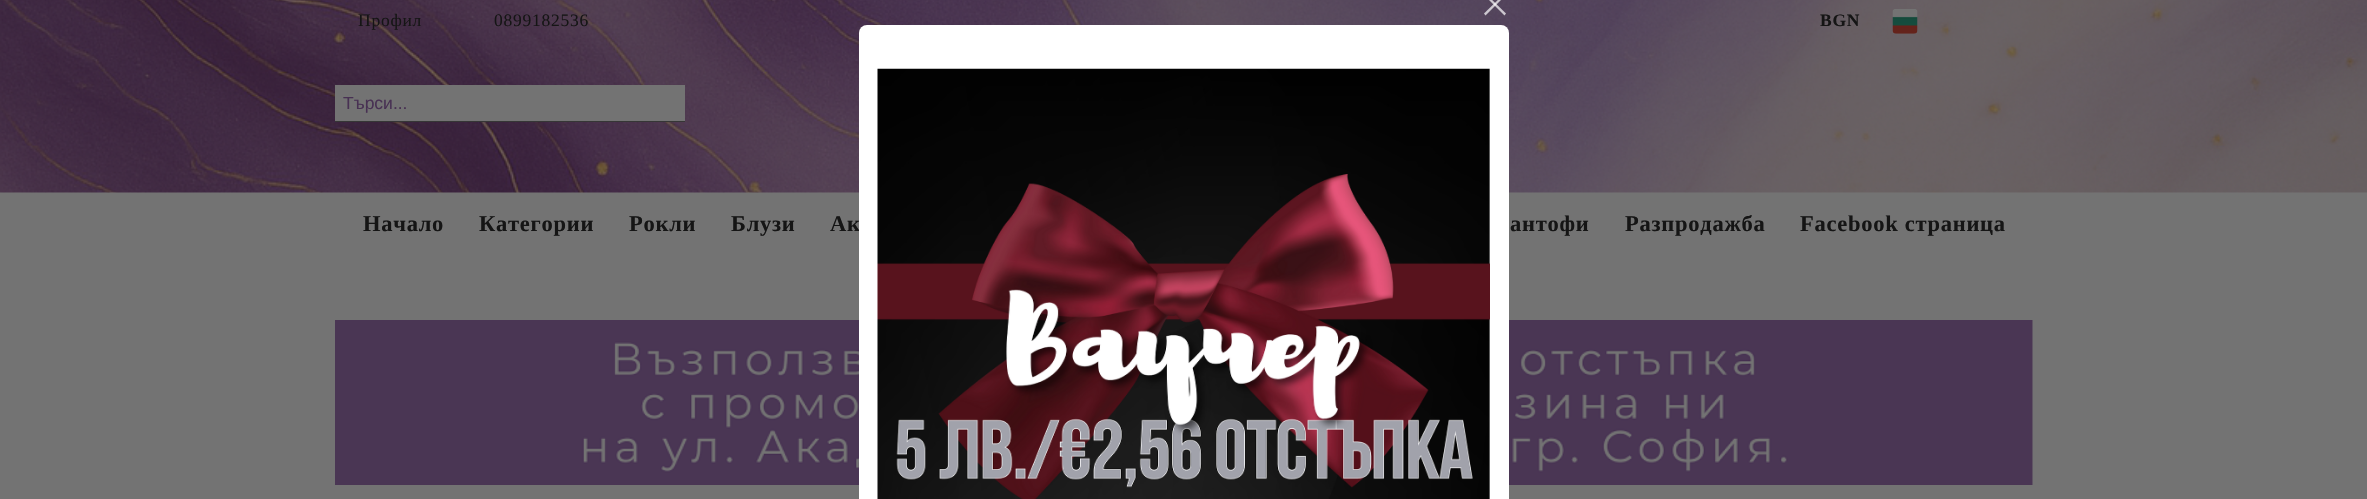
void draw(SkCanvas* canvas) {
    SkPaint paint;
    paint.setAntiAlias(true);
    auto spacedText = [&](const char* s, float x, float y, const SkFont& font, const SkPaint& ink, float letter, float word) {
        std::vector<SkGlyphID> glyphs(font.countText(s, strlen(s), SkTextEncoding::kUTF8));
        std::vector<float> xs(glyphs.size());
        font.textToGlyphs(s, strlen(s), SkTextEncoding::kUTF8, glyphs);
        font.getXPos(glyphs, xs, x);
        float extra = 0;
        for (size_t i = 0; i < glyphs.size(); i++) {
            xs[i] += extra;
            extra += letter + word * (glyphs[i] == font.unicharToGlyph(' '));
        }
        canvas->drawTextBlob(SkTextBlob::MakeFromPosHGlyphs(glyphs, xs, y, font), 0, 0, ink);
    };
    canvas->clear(0xFF737373);
    canvas->drawImageRect(SkImages::DeferredFromEncodedData(SkData::MakeFromFileName("img2.png")), SkRect::MakeXYWH(0, 0, 2367, 193), SkSamplingOptions());
    SkFont font1(fontMgr->matchFamilyStyle("Liberation Serif", SkFontStyle::Bold()), 22.5f);
    font1.setSubpixel(true);
    paint.setColor(0xFF151515);
    spacedText("Ак", 830, 231, font1, paint, 0.75f, 0);
    canvas->drawImageRect(SkImages::DeferredFromEncodedData(SkData::MakeFromFileName("img4.png")), SkRect::MakeXYWH(335, 320, 1698, 165), SkSamplingOptions());
    paint.setColor(0xFFFFFFFF);
    canvas->drawRoundRect(SkRect::MakeXYWH(859, 25, 650, 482), 8, 8, paint);
    paint.setColor(0xB3FFFFFF);
    canvas->drawPath(SkPathBuilder().moveTo(1504.5f, -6.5f).lineTo(1506, -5).lineTo(1485.5f, 15.5f).lineTo(1484, 13.5f).close().detach(), paint);
    canvas->drawPath(SkPathBuilder().moveTo(1484, -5).lineTo(1485.5f, -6.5f).lineTo(1506, 13.5f).lineTo(1504.5f, 15.5f).close().detach(), paint);
    canvas->drawImageRect(SkImages::DeferredFromEncodedData(SkData::MakeFromFileName("img1.png")), SkRect::MakeXYWH(877, 68, 613, 431), SkSamplingOptions());
    SkFont font2(fontMgr->matchFamilyStyle("Liberation Serif", SkFontStyle::Normal()), 17.5f);
    font2.setSubpixel(true);
    paint.setColor(0xFF151515);
    spacedText("Профил", 358, 26, font2, paint, 0.75f, 0);
    spacedText("0899182536", 494, 26, font2, paint, 0.75f, 0);
    SkFont font3(fontMgr->matchFamilyStyle("Liberation Serif", SkFontStyle::Bold()), 17.5f);
    font3.setSubpixel(true);
    spacedText("BGN", 1820, 26, font3, paint, 0.75f, 0);
    canvas->drawImageRect(SkImages::DeferredFromEncodedData(SkData::MakeFromFileName("img3.png")), SkRect::MakeXYWH(1892, 9, 26, 25), SkSamplingOptions());
    paint.setColor(0xFF737373);
    canvas->drawRect(SkRect::MakeXYWH(335, 85, 350, 36), paint);
    paint.setColor(0xFF363636);
    canvas->drawRect(SkRect::MakeXYWH(335, 121, 350, 1), paint);
    SkFont font4(fontMgr->matchFamilyStyle("Liberation Sans", SkFontStyle::Normal()), 17.5f);
    font4.setSubpixel(true);
    paint.setColor(0xFF483153);
    canvas->drawString("Търси...", 343, 109, font4, paint);
    paint.setColor(0xFF151515);
    spacedText("Начало", 363, 231, font1, paint, 0.75f, 0);
    spacedText("Категории", 479, 231, font1, paint, 0.75f, 0);
    spacedText("Рокли", 629, 231, font1, paint, 0.75f, 0);
    spacedText("Блузи", 731, 231, font1, paint, 0.75f, 0);
    spacedText("антофи", 1510, 231, font1, paint, 0.75f, 0);
    spacedText("Разпродажба", 1625, 231, font1, paint, 0.75f, 0);
    spacedText("Facebook страница", 1800, 231, font1, paint, 0.75f, 0);
}
